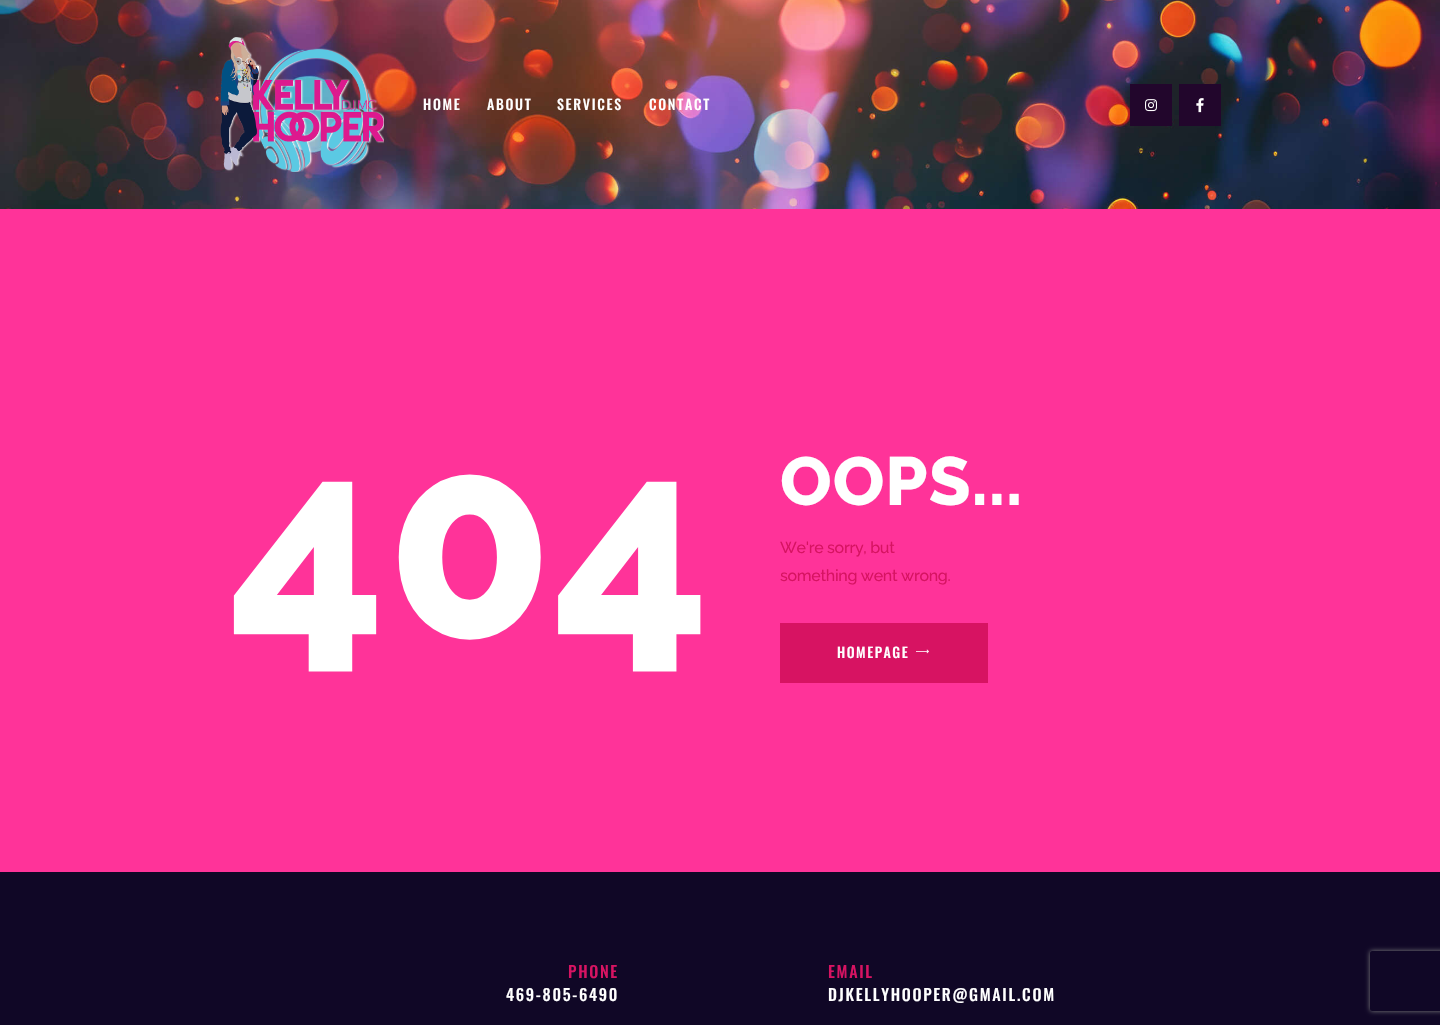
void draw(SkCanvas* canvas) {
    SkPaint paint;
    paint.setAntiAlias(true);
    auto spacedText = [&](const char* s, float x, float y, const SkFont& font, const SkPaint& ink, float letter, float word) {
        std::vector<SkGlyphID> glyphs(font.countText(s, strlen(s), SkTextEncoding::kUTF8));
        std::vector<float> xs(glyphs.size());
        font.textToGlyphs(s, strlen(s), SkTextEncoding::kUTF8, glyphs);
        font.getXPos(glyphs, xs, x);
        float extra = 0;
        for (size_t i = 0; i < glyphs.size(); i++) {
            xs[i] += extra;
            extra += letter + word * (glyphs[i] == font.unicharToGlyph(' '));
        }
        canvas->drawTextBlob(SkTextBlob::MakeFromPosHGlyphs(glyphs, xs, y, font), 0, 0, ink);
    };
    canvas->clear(0xFFFF3399);
    canvas->drawImageRect(SkImages::DeferredFromEncodedData(SkData::MakeFromFileName("img1.png")), SkRect::MakeXYWH(0, 0, 1440, 209), SkSamplingOptions());
    canvas->drawImageRect(SkImages::DeferredFromEncodedData(SkData::MakeFromFileName("img2.png")), SkRect::MakeXYWH(220, 37, 164, 135), SkSamplingOptions());
    SkFont font1(fontMgr->matchFamilyStyle("Oswald", SkFontStyle(500, SkFontStyle::kNormal_Width, SkFontStyle::kUpright_Slant)), 14);
    font1.setSubpixel(true);
    paint.setColor(0xFFFFFFFF);
    spacedText("HOME", 423, 110, font1, paint, 1.7f, 0);
    spacedText("ABOUT", 487, 110, font1, paint, 1.7f, 0);
    spacedText("SERVICES", 557, 110, font1, paint, 1.7f, 0);
    spacedText("CONTACT", 649, 110, font1, paint, 1.7f, 0);
    paint.setColor(0xFF22062C);
    canvas->drawRect(SkRect::MakeXYWH(1130, 84, 42, 42), paint);
    canvas->drawImageRect(SkImages::DeferredFromEncodedData(SkData::MakeFromFileName("img3.png")), SkRect::MakeXYWH(1145, 99, 12, 13), SkSamplingOptions());
    canvas->drawRect(SkRect::MakeXYWH(1179, 84, 42, 42), paint);
    canvas->drawImageRect(SkImages::DeferredFromEncodedData(SkData::MakeFromFileName("img4.png")), SkRect::MakeXYWH(1196, 98, 8, 15), SkSamplingOptions());
    SkFont font2(fontMgr->matchFamilyStyle("Raleway", SkFontStyle(800, SkFontStyle::kNormal_Width, SkFontStyle::kUpright_Slant)), 272);
    font2.setSubpixel(true);
    paint.setColor(0xFFFFFFFF);
    canvas->drawString("404", 229, 637, font2, paint);
    SkFont font3(fontMgr->matchFamilyStyle("Raleway", SkFontStyle(800, SkFontStyle::kNormal_Width, SkFontStyle::kUpright_Slant)), 68);
    font3.setSubpixel(true);
    spacedText("OOPS...", 780, 505, font3, paint, 1, 0);
    SkFont font4(fontMgr->matchFamilyStyle("Raleway", SkFontStyle(500, SkFontStyle::kNormal_Width, SkFontStyle::kUpright_Slant)), 16);
    font4.setSubpixel(true);
    paint.setColor(0xFFD71362);
    spacedText("We're sorry, but", 780, 553, font4, paint, -0.3f, 0);
    spacedText("something went wrong.", 780, 581, font4, paint, -0.3f, 0);
    canvas->drawRect(SkRect::MakeXYWH(780, 623, 208, 60), paint);
    paint.setColor(0xFFFFFFFF);
    spacedText("HOMEPAGE", 837, 658, font1, paint, 1.5f, 0);
    canvas->drawImageRect(SkImages::DeferredFromEncodedData(SkData::MakeFromFileName("img5.png")), SkRect::MakeXYWH(916, 649, 13, 5), SkSamplingOptions());
    paint.setColor(0xFF100726);
    canvas->drawRect(SkRect::MakeXYWH(0, 872, 1440, 153), paint);
    SkFont font5(fontMgr->matchFamilyStyle("Oswald", SkFontStyle(500, SkFontStyle::kNormal_Width, SkFontStyle::kUpright_Slant)), 16);
    font5.setSubpixel(true);
    paint.setColor(0xFFD71362);
    spacedText("PHONE", 568, 978, font5, paint, 1.7f, 0);
    paint.setColor(0xFFFFFFFF);
    spacedText("469-805-6490", 506, 1001, font5, paint, 1.7f, 0);
    paint.setColor(0xFFD71362);
    spacedText("EMAIL", 828, 978, font5, paint, 1.7f, 0);
    paint.setColor(0xFFFFFFFF);
    spacedText("DJKELLYHOOPER@GMAIL.COM", 828, 1001, font5, paint, 1.7f, 0);
    canvas->save();
    canvas->clipPath(SkPathBuilder(SkPathFillType::kEvenOdd).moveTo(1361, 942).lineTo(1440, 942).lineTo(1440, 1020).lineTo(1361, 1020).close().moveTo(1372, 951).lineTo(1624, 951).cubicTo(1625, 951, 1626, 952, 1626, 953).lineTo(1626, 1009).cubicTo(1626, 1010, 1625, 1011, 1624, 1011).lineTo(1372, 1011).cubicTo(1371, 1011, 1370, 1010, 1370, 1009).lineTo(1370, 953).cubicTo(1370, 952, 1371, 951, 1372, 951).close().detach(), true);
    paint.setColor(0xFF808080);
    paint.setMaskFilter(SkMaskFilter::MakeBlur(kNormal_SkBlurStyle, 2.5f));
    canvas->drawRoundRect(SkRect::MakeXYWH(1370, 951, 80, 60), 2, 2, paint);
    paint.setMaskFilter(nullptr);
    canvas->restore();
}
